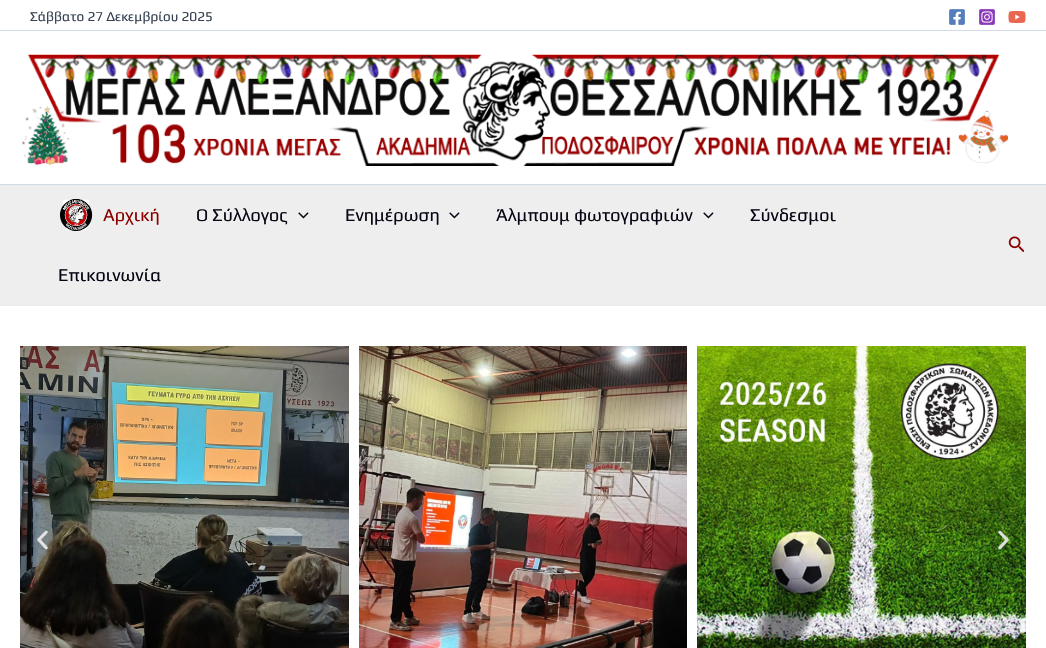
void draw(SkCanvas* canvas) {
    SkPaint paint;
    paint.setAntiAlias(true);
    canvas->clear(0xFFFFFFFF);
    paint.setColor(0xFFD1DAE5);
    canvas->drawRect(SkRect::MakeXYWH(0, 30, 1046, 1), paint);
    SkFont font1(fontMgr->matchFamilyStyle("Play", SkFontStyle::Normal()), 13.5f);
    font1.setSubpixel(true);
    paint.setColor(0xFF364151);
    canvas->drawString("Σάββατο 27 Δεκεμβρίου 2025", 30, 21, font1, paint);
    canvas->drawImageRect(SkImages::DeferredFromEncodedData(SkData::MakeFromFileName("img1.png")), SkRect::MakeXYWH(949, 9, 16, 16), SkSamplingOptions());
    canvas->drawImageRect(SkImages::DeferredFromEncodedData(SkData::MakeFromFileName("img2.png")), SkRect::MakeXYWH(979, 9, 16, 16), SkSamplingOptions());
    canvas->drawImageRect(SkImages::DeferredFromEncodedData(SkData::MakeFromFileName("img3.png")), SkRect::MakeXYWH(1008, 11, 18, 12), SkSamplingOptions());
    paint.setColor(0xFFD1DAE5);
    canvas->drawRect(SkRect::MakeXYWH(0, 184, 1046, 1), paint);
    canvas->drawImageRect(SkImages::DeferredFromEncodedData(SkData::MakeFromFileName("img4.png")), SkRect::MakeXYWH(22, 54, 986, 112), SkSamplingOptions());
    paint.setColor(0xFFEEEEEE);
    canvas->drawRect(SkRect::MakeXYWH(0, 185, 1046, 120), paint);
    paint.setColor(0xFFEAEAEA);
    canvas->drawRect(SkRect::MakeXYWH(0, 305, 1046, 1), paint);
    canvas->drawImageRect(SkImages::DeferredFromEncodedData(SkData::MakeFromFileName("img5.png")), SkRect::MakeXYWH(60, 199, 33, 32), SkSamplingOptions());
    SkFont font2(fontMgr->matchFamilyStyle("Play", SkFontStyle::Normal()), 18);
    font2.setSubpixel(true);
    paint.setColor(0xFF8B0000);
    canvas->drawString("Αρχική", 103, 221, font2, paint);
    paint.setColor(0xFF070614);
    canvas->drawString("Ο Σύλλογος", 196, 221, font2, paint);
    canvas->drawImageRect(SkImages::DeferredFromEncodedData(SkData::MakeFromFileName("img6.png")), SkRect::MakeXYWH(298, 212, 11, 7), SkSamplingOptions());
    canvas->drawString("Ενημέρωση", 345, 221, font2, paint);
    canvas->drawImageRect(SkImages::DeferredFromEncodedData(SkData::MakeFromFileName("img6.png")), SkRect::MakeXYWH(449, 212, 11, 7), SkSamplingOptions());
    canvas->drawString("Άλμπουμ φωτογραφιών", 496, 221, font2, paint);
    canvas->drawImageRect(SkImages::DeferredFromEncodedData(SkData::MakeFromFileName("img6.png")), SkRect::MakeXYWH(703, 212, 11, 7), SkSamplingOptions());
    canvas->drawString("Σύνδεσμοι", 750, 221, font2, paint);
    canvas->drawString("Επικοινωνία", 58, 281, font2, paint);
    canvas->drawImageRect(SkImages::DeferredFromEncodedData(SkData::MakeFromFileName("img7.png")), SkRect::MakeXYWH(1008, 236, 16, 17), SkSamplingOptions());
    canvas->drawImageRect(SkImages::DeferredFromEncodedData(SkData::MakeFromFileName("img8.png")), SkRect::MakeXYWH(20, 346, 329, 302), SkSamplingOptions());
    canvas->drawImageRect(SkImages::DeferredFromEncodedData(SkData::MakeFromFileName("img9.png")), SkRect::MakeXYWH(359, 346, 328, 302), SkSamplingOptions());
    canvas->drawImageRect(SkImages::DeferredFromEncodedData(SkData::MakeFromFileName("img10.png")), SkRect::MakeXYWH(697, 346, 329, 302), SkSamplingOptions());
    canvas->drawImageRect(SkImages::DeferredFromEncodedData(SkData::MakeFromFileName("img11.png")), SkRect::MakeXYWH(37, 530, 11, 20), SkSamplingOptions());
    canvas->drawImageRect(SkImages::DeferredFromEncodedData(SkData::MakeFromFileName("img12.png")), SkRect::MakeXYWH(998, 530, 11, 20), SkSamplingOptions());
}
